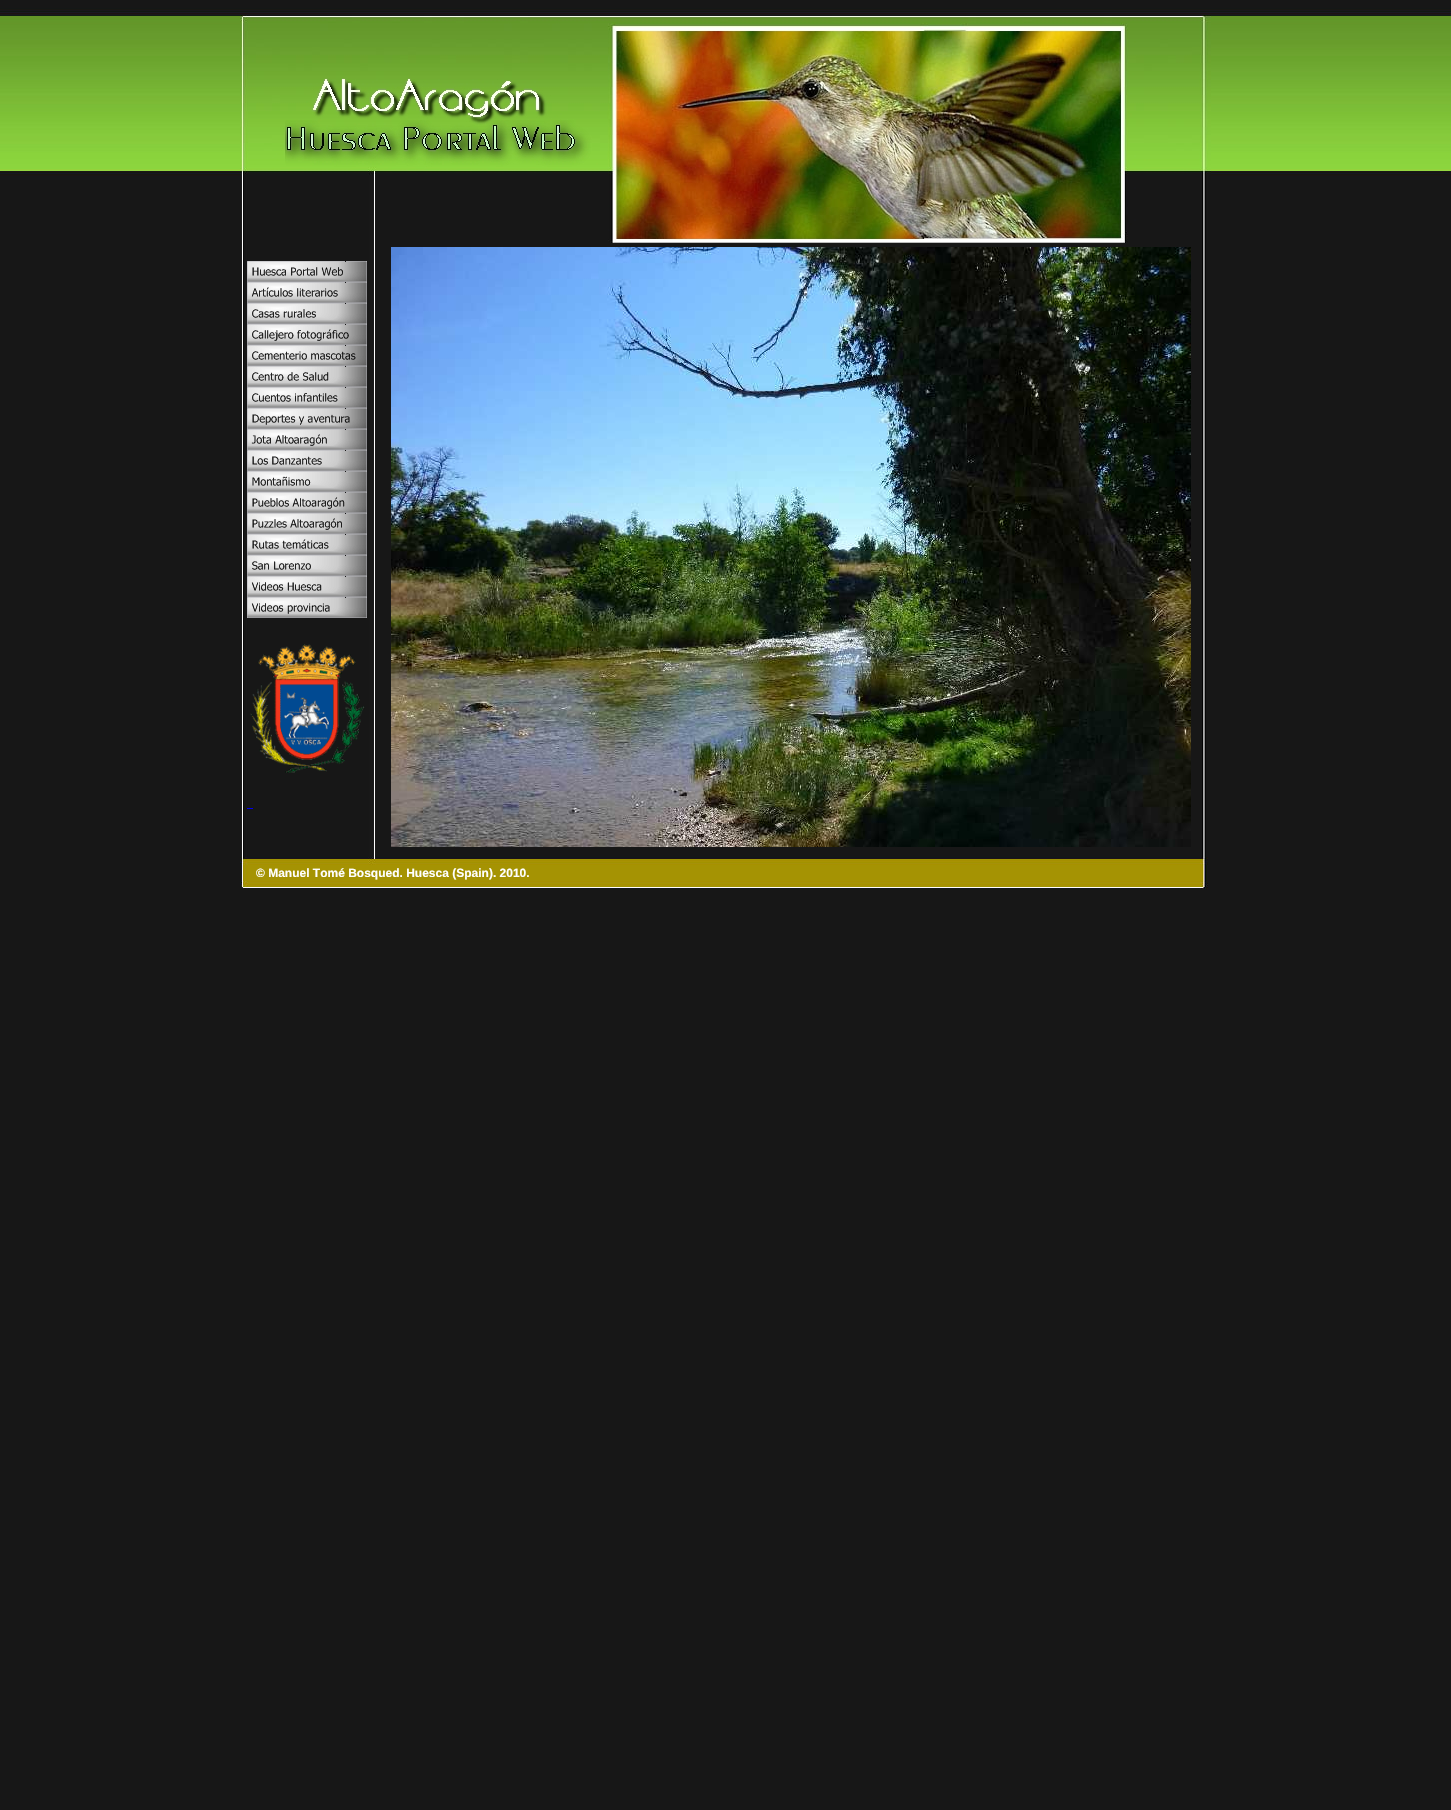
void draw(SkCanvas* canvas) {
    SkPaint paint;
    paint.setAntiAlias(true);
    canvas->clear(0xFFFFFFFF);
    canvas->drawImageRect(SkImages::DeferredFromEncodedData(SkData::MakeFromFileName("img1.png")), SkRect::MakeXYWH(0, 0, 1451, 1810), SkSamplingOptions());
    canvas->drawImageRect(SkImages::DeferredFromEncodedData(SkData::MakeFromFileName("img2.png")), SkRect::MakeXYWH(240, 15, 971, 228), SkSamplingOptions());
    canvas->drawImageRect(SkImages::DeferredFromEncodedData(SkData::MakeFromFileName("img3.png")), SkRect::MakeXYWH(241, 243, 965, 614), SkSamplingOptions());
    canvas->drawImageRect(SkImages::DeferredFromEncodedData(SkData::MakeFromFileName("img4.png")), SkRect::MakeXYWH(247, 261, 120, 21), SkSamplingOptions());
    canvas->drawImageRect(SkImages::DeferredFromEncodedData(SkData::MakeFromFileName("img5.png")), SkRect::MakeXYWH(247, 282, 120, 21), SkSamplingOptions());
    canvas->drawImageRect(SkImages::DeferredFromEncodedData(SkData::MakeFromFileName("img6.png")), SkRect::MakeXYWH(247, 303, 120, 21), SkSamplingOptions());
    canvas->drawImageRect(SkImages::DeferredFromEncodedData(SkData::MakeFromFileName("img7.png")), SkRect::MakeXYWH(247, 324, 120, 21), SkSamplingOptions());
    canvas->drawImageRect(SkImages::DeferredFromEncodedData(SkData::MakeFromFileName("img8.png")), SkRect::MakeXYWH(247, 345, 120, 21), SkSamplingOptions());
    canvas->drawImageRect(SkImages::DeferredFromEncodedData(SkData::MakeFromFileName("img9.png")), SkRect::MakeXYWH(247, 366, 120, 21), SkSamplingOptions());
    canvas->drawImageRect(SkImages::DeferredFromEncodedData(SkData::MakeFromFileName("img10.png")), SkRect::MakeXYWH(247, 387, 120, 21), SkSamplingOptions());
    canvas->drawImageRect(SkImages::DeferredFromEncodedData(SkData::MakeFromFileName("img11.png")), SkRect::MakeXYWH(247, 408, 120, 21), SkSamplingOptions());
    canvas->drawImageRect(SkImages::DeferredFromEncodedData(SkData::MakeFromFileName("img12.png")), SkRect::MakeXYWH(247, 429, 120, 21), SkSamplingOptions());
    canvas->drawImageRect(SkImages::DeferredFromEncodedData(SkData::MakeFromFileName("img13.png")), SkRect::MakeXYWH(247, 450, 120, 21), SkSamplingOptions());
    canvas->drawImageRect(SkImages::DeferredFromEncodedData(SkData::MakeFromFileName("img14.png")), SkRect::MakeXYWH(247, 471, 120, 21), SkSamplingOptions());
    canvas->drawImageRect(SkImages::DeferredFromEncodedData(SkData::MakeFromFileName("img15.png")), SkRect::MakeXYWH(247, 492, 120, 21), SkSamplingOptions());
    canvas->drawImageRect(SkImages::DeferredFromEncodedData(SkData::MakeFromFileName("img16.png")), SkRect::MakeXYWH(247, 513, 120, 21), SkSamplingOptions());
    canvas->drawImageRect(SkImages::DeferredFromEncodedData(SkData::MakeFromFileName("img17.png")), SkRect::MakeXYWH(247, 534, 120, 21), SkSamplingOptions());
    canvas->drawImageRect(SkImages::DeferredFromEncodedData(SkData::MakeFromFileName("img18.png")), SkRect::MakeXYWH(247, 555, 120, 21), SkSamplingOptions());
    canvas->drawImageRect(SkImages::DeferredFromEncodedData(SkData::MakeFromFileName("img19.png")), SkRect::MakeXYWH(247, 576, 120, 21), SkSamplingOptions());
    canvas->drawImageRect(SkImages::DeferredFromEncodedData(SkData::MakeFromFileName("img20.png")), SkRect::MakeXYWH(247, 597, 120, 21), SkSamplingOptions());
    canvas->drawImageRect(SkImages::DeferredFromEncodedData(SkData::MakeFromFileName("img21.png")), SkRect::MakeXYWH(250, 644, 115, 129), SkSamplingOptions());
    paint.setColor(0xFF0000EE);
    canvas->drawRect(SkRect::MakeXYWH(247, 808, 6, 1), paint);
    canvas->drawImageRect(SkImages::DeferredFromEncodedData(SkData::MakeFromFileName("img22.png")), SkRect::MakeXYWH(391, 247, 800, 600), SkSamplingOptions());
    canvas->drawImageRect(SkImages::DeferredFromEncodedData(SkData::MakeFromFileName("img23.png")), SkRect::MakeXYWH(240, 857, 968, 32), SkSamplingOptions());
    SkFont font1(fontMgr->matchFamilyStyle("Liberation Sans", SkFontStyle::Bold()), 12);
    font1.setSubpixel(true);
    paint.setColor(0xFFFFFFFF);
    canvas->drawString("© Manuel Tomé Bosqued. Huesca (Spain). 2010.", 256, 877, font1, paint);
}
